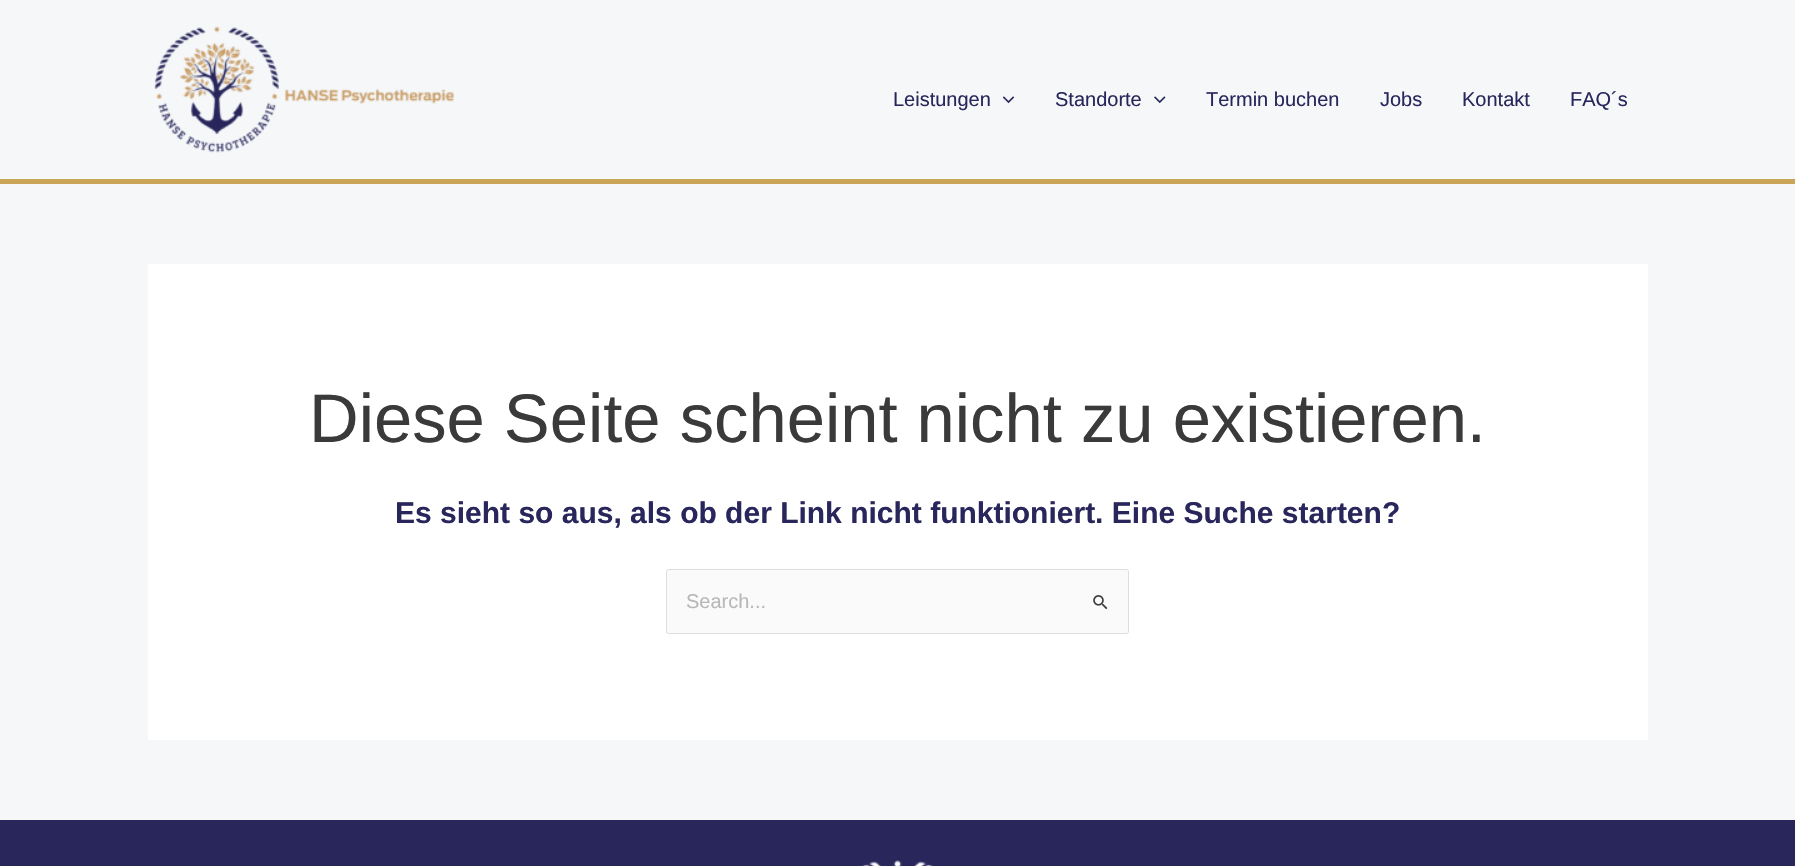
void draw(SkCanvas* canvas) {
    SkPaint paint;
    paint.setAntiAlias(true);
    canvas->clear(0xFFF5F7F8);
    paint.setColor(0xFFCBA557);
    canvas->drawRect(SkRect::MakeXYWH(0, 179, 1795, 5), paint);
    canvas->drawImageRect(SkImages::DeferredFromEncodedData(SkData::MakeFromFileName("img1.png")), SkRect::MakeXYWH(154, 26, 300, 127), SkSamplingOptions());
    SkFont font1(fontMgr->matchFamilyStyle("Liberation Sans", SkFontStyle::Normal()), 20);
    font1.setSubpixel(true);
    paint.setColor(0xFF29265B);
    canvas->drawString("Leistungen", 893, 106, font1, paint);
    canvas->drawImageRect(SkImages::DeferredFromEncodedData(SkData::MakeFromFileName("img2.png")), SkRect::MakeXYWH(1003, 96, 12, 8), SkSamplingOptions());
    canvas->drawString("Standorte", 1055, 106, font1, paint);
    canvas->drawImageRect(SkImages::DeferredFromEncodedData(SkData::MakeFromFileName("img3.png")), SkRect::MakeXYWH(1154, 96, 12, 8), SkSamplingOptions());
    canvas->drawString("Termin buchen", 1206, 106, font1, paint);
    canvas->drawString("Jobs", 1380, 106, font1, paint);
    canvas->drawString("Kontakt", 1462, 106, font1, paint);
    canvas->drawString("FAQ´s", 1570, 106, font1, paint);
    paint.setColor(0xFFFFFFFF);
    canvas->drawRect(SkRect::MakeXYWH(148, 264, 1500, 476), paint);
    SkFont font2(fontMgr->matchFamilyStyle("Liberation Sans", SkFontStyle::Normal()), 68.75f);
    font2.setSubpixel(true);
    paint.setColor(0xFF3A3A3A);
    canvas->drawString("Diese Seite scheint nicht zu existieren.", 309, 442, font2, paint);
    SkFont font3(fontMgr->matchFamilyStyle("Liberation Sans", SkFontStyle::Bold()), 30);
    font3.setSubpixel(true);
    paint.setColor(0xFF29265B);
    canvas->drawString("Es sieht so aus, als ob der Link nicht funktioniert. Eine Suche starten?", 395, 523, font3, paint);
    paint.setColor(0xFFFAFAFA);
    canvas->drawRoundRect(SkRect::MakeXYWH(666.5f, 569.5f, 462, 64), 2, 2, paint);
    paint.setStyle(SkPaint::kStroke_Style);
    paint.setStrokeWidth(1);
    paint.setColor(0xFFDDDDDD);
    canvas->drawRoundRect(SkRect::MakeXYWH(666.5f, 569.5f, 462, 64), 2, 2, paint);
    paint.setStyle(SkPaint::kFill_Style);
    paint.setColor(0xFFB8B8B8);
    canvas->drawString("Search...", 686, 608, font1, paint);
    canvas->drawImageRect(SkImages::DeferredFromEncodedData(SkData::MakeFromFileName("img4.png")), SkRect::MakeXYWH(1093, 595, 15, 15), SkSamplingOptions());
    paint.setColor(0xFF29265B);
    canvas->drawRect(SkRect::MakeXYWH(0, 820, 1795, 46), paint);
    canvas->drawImageRect(SkImages::DeferredFromEncodedData(SkData::MakeFromFileName("img5.png")), SkRect::MakeXYWH(862, 860, 71, 6), SkSamplingOptions());
}
